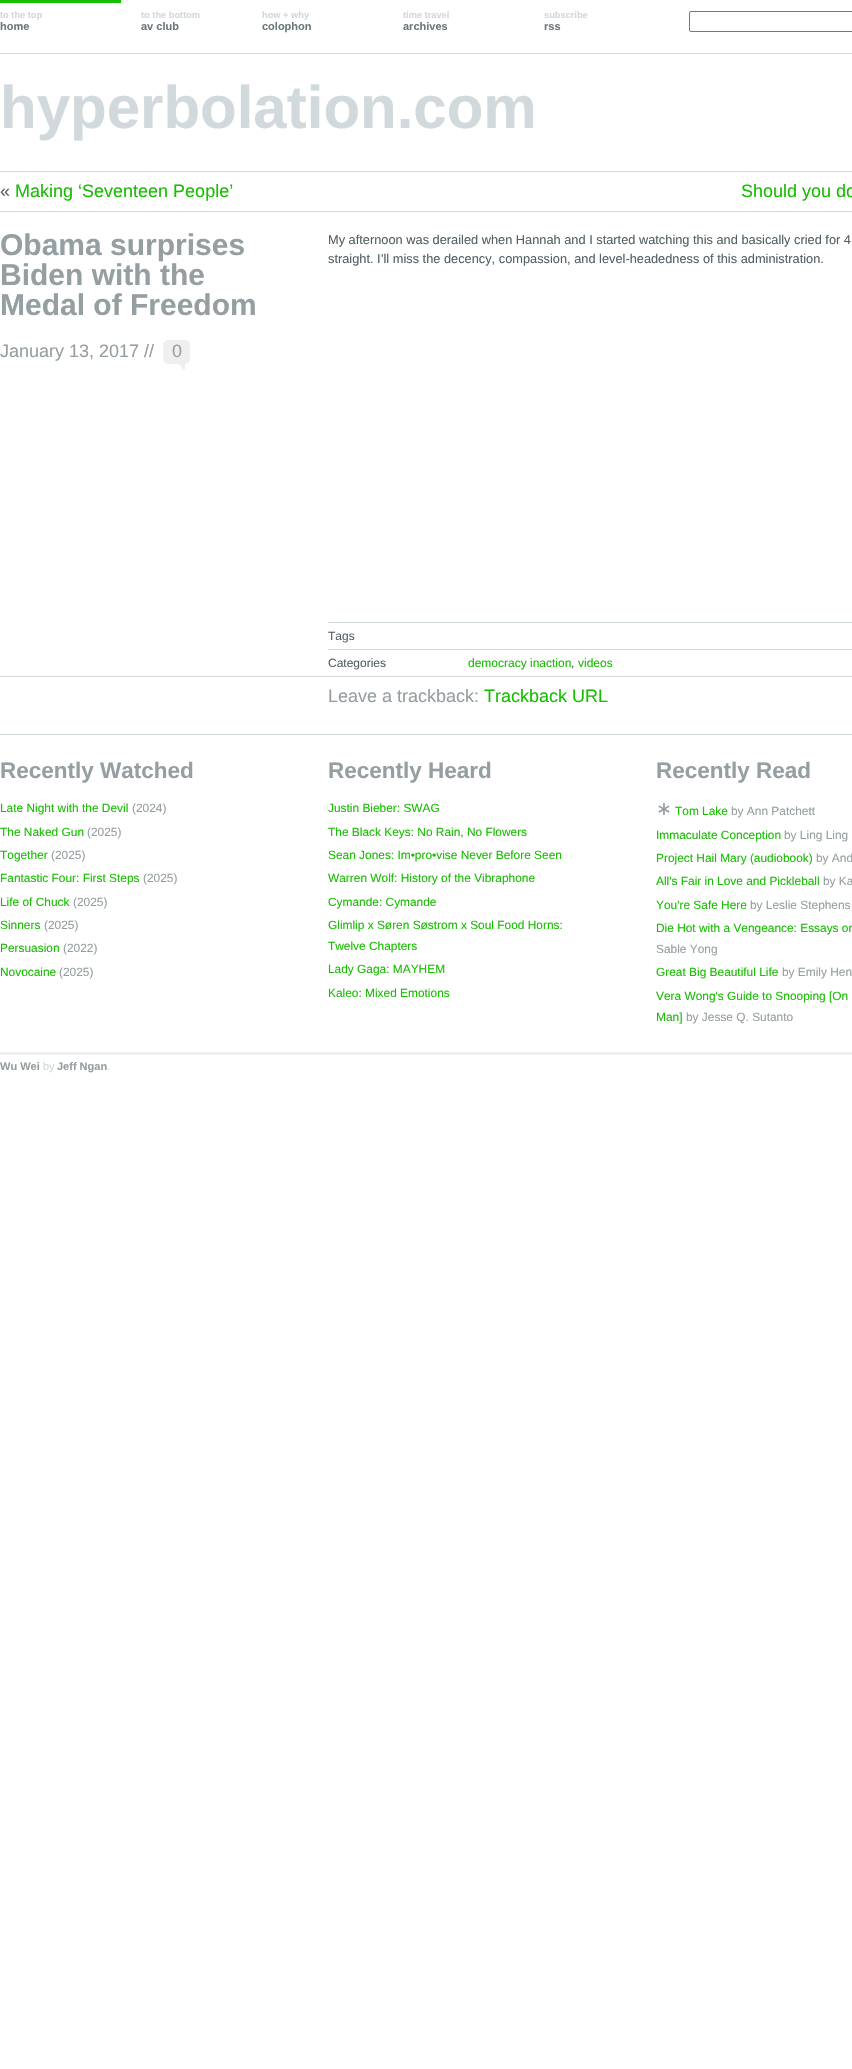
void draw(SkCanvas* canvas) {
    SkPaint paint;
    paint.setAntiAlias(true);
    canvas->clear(0xFFFFFFFF);
    paint.setColor(0xFFD1D9DC);
    canvas->drawRect(SkRect::MakeXYWH(0, 53, 852, 1), paint);
    paint.setColor(0xFF16BD00);
    canvas->drawRect(SkRect::MakeXYWH(0, 0, 121, 3), paint);
    SkFont font1(fontMgr->matchFamilyStyle("Liberation Sans", SkFontStyle::Bold()), 9.25f);
    font1.setSubpixel(true);
    paint.setColor(0xFFD1D9DC);
    canvas->drawString("to the top", 0, 18, font1, paint);
    SkFont font2(fontMgr->matchFamilyStyle("Liberation Sans", SkFontStyle::Bold()), 11);
    font2.setSubpixel(true);
    paint.setColor(0xFF6A797D);
    canvas->drawString("home", 0, 30, font2, paint);
    paint.setColor(0xFFD1D9DC);
    canvas->drawString("to the bottom", 141, 18, font1, paint);
    paint.setColor(0xFF6A797D);
    canvas->drawString("av club", 141, 30, font2, paint);
    paint.setColor(0xFFD1D9DC);
    canvas->drawString("how + why", 262, 18, font1, paint);
    paint.setColor(0xFF6A797D);
    canvas->drawString("colophon", 262, 30, font2, paint);
    paint.setColor(0xFFD1D9DC);
    canvas->drawString("time travel", 403, 18, font1, paint);
    paint.setColor(0xFF6A797D);
    canvas->drawString("archives", 403, 30, font2, paint);
    paint.setColor(0xFFD1D9DC);
    canvas->drawString("subscribe", 544, 18, font1, paint);
    paint.setColor(0xFF6A797D);
    canvas->drawString("rss", 544, 30, font2, paint);
    paint.setStyle(SkPaint::kStroke_Style);
    paint.setStrokeWidth(1);
    paint.setColor(0xFF767676);
    canvas->drawRoundRect(SkRect::MakeXYWH(689.5f, 11.5f, 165, 20), 1.5f, 1.5f, paint);
    SkFont font3(fontMgr->matchFamilyStyle("Liberation Sans", SkFontStyle::Bold()), 60);
    font3.setSubpixel(true);
    paint.setStyle(SkPaint::kFill_Style);
    paint.setColor(0xFFD1D9DC);
    canvas->drawString("hyperbolation.com", 0, 128, font3, paint);
    canvas->drawRect(SkRect::MakeXYWH(0, 171, 852, 1), paint);
    SkFont font4(fontMgr->matchFamilyStyle("Liberation Sans", SkFontStyle::Normal()), 18);
    font4.setSubpixel(true);
    paint.setColor(0xFF516064);
    canvas->drawString("«", 0, 197, font4, paint);
    paint.setColor(0xFF16BD00);
    canvas->drawString("Making ‘Seventeen People’", 15, 197, font4, paint);
    canvas->drawString("Should you do", 741, 197, font4, paint);
    paint.setColor(0xFFD1D9DC);
    canvas->drawRect(SkRect::MakeXYWH(0, 211, 852, 1), paint);
    SkFont font5(fontMgr->matchFamilyStyle("Liberation Sans", SkFontStyle::Bold()), 30);
    font5.setSubpixel(true);
    paint.setColor(0xFF959EA1);
    canvas->drawString("Obama surprises", 0, 255, font5, paint);
    canvas->drawString("Biden with the", 0, 285, font5, paint);
    canvas->drawString("Medal of Freedom", 0, 315, font5, paint);
    canvas->drawString("January 13, 2017 //", 0, 357, font4, paint);
    canvas->drawImageRect(SkImages::DeferredFromEncodedData(SkData::MakeFromFileName("img1.png")), SkRect::MakeXYWH(163, 340, 27, 30), SkSamplingOptions());
    canvas->drawString("0", 172, 357, font4, paint);
    SkFont font6(fontMgr->matchFamilyStyle("Liberation Sans", SkFontStyle::Normal()), 12.8f);
    font6.setSubpixel(true);
    paint.setColor(0xFF516064);
    canvas->drawString("My afternoon was derailed when Hannah and I started watching this and basically cried for 4", 328, 244, font6, paint);
    canvas->drawString("straight. I’ll miss the decency, compassion, and level-headedness of this administration.", 328, 263, font6, paint);
    paint.setColor(0xFFD1D9DC);
    canvas->drawRect(SkRect::MakeXYWH(328, 622, 524, 1), paint);
    SkFont font7(fontMgr->matchFamilyStyle("Liberation Sans", SkFontStyle::Normal()), 12);
    font7.setSubpixel(true);
    paint.setColor(0xFF516064);
    canvas->drawString("Tags", 328, 640, font7, paint);
    paint.setColor(0xFFD1D9DC);
    canvas->drawRect(SkRect::MakeXYWH(328, 649, 524, 1), paint);
    paint.setColor(0xFF516064);
    canvas->drawString("Categories", 328, 667, font7, paint);
    paint.setColor(0xFF16BD00);
    canvas->drawString("democracy inaction", 468, 667, font7, paint);
    paint.setColor(0xFF516064);
    canvas->drawString(",", 571, 667, font7, paint);
    paint.setColor(0xFF16BD00);
    canvas->drawString("videos", 578, 667, font7, paint);
    paint.setColor(0xFFD1D9DC);
    canvas->drawRect(SkRect::MakeXYWH(0, 676, 852, 1), paint);
    paint.setColor(0xFF959EA1);
    canvas->drawString("Leave a trackback:", 328, 702, font4, paint);
    paint.setColor(0xFF16BD00);
    canvas->drawString("Trackback URL", 484, 702, font4, paint);
    paint.setColor(0xFFD1D9DC);
    canvas->drawRect(SkRect::MakeXYWH(0, 734, 852, 1), paint);
    SkFont font8(fontMgr->matchFamilyStyle("Liberation Sans", SkFontStyle::Bold()), 22.5f);
    font8.setSubpixel(true);
    paint.setColor(0xFF959EA1);
    canvas->drawString("Recently Watched", 0, 778, font8, paint);
    SkFont font9(fontMgr->matchFamilyStyle("Liberation Sans", SkFontStyle::Normal()), 11.9f);
    font9.setSubpixel(true);
    paint.setColor(0xFF16BD00);
    canvas->drawString("Late Night with the Devil", 0, 812, font9, paint);
    paint.setColor(0xFF959EA1);
    canvas->drawString("(2024)", 132, 812, font9, paint);
    paint.setColor(0xFF16BD00);
    canvas->drawString("The Naked Gun", 0, 836, font9, paint);
    paint.setColor(0xFF959EA1);
    canvas->drawString("(2025)", 87, 836, font9, paint);
    paint.setColor(0xFF16BD00);
    canvas->drawString("Together", 0, 859, font9, paint);
    paint.setColor(0xFF959EA1);
    canvas->drawString("(2025)", 51, 859, font9, paint);
    paint.setColor(0xFF16BD00);
    canvas->drawString("Fantastic Four: First Steps", 0, 882, font9, paint);
    paint.setColor(0xFF959EA1);
    canvas->drawString("(2025)", 143, 882, font9, paint);
    paint.setColor(0xFF16BD00);
    canvas->drawString("Life of Chuck", 0, 906, font9, paint);
    paint.setColor(0xFF959EA1);
    canvas->drawString("(2025)", 73, 906, font9, paint);
    paint.setColor(0xFF16BD00);
    canvas->drawString("Sinners", 0, 929, font9, paint);
    paint.setColor(0xFF959EA1);
    canvas->drawString("(2025)", 44, 929, font9, paint);
    paint.setColor(0xFF16BD00);
    canvas->drawString("Persuasion", 0, 952, font9, paint);
    paint.setColor(0xFF959EA1);
    canvas->drawString("(2022)", 63, 952, font9, paint);
    paint.setColor(0xFF16BD00);
    canvas->drawString("Novocaine", 0, 976, font9, paint);
    paint.setColor(0xFF959EA1);
    canvas->drawString("(2025)", 59, 976, font9, paint);
    canvas->drawString("Recently Heard", 328, 778, font8, paint);
    paint.setColor(0xFF16BD00);
    canvas->drawString("Justin Bieber: SWAG", 328, 812, font9, paint);
    canvas->drawString("The Black Keys: No Rain, No Flowers", 328, 836, font9, paint);
    canvas->drawString("Sean Jones: Im•pro•vise Never Before Seen", 328, 859, font9, paint);
    canvas->drawString("Warren Wolf: History of the Vibraphone", 328, 882, font9, paint);
    canvas->drawString("Cymande: Cymande", 328, 906, font9, paint);
    canvas->drawString("Glimlip x Søren Søstrom x Soul Food Horns:", 328, 929, font9, paint);
    canvas->drawString("Twelve Chapters", 328, 950, font9, paint);
    canvas->drawString("Lady Gaga: MAYHEM", 328, 973, font9, paint);
    canvas->drawString("Kaleo: Mixed Emotions", 328, 997, font9, paint);
    paint.setColor(0xFF959EA1);
    canvas->drawString("Recently Read", 656, 778, font8, paint);
    SkFont font10(fontMgr->matchFamilyStyle("DejaVu Sans", SkFontStyle::Normal()), 19);
    font10.setSubpixel(true);
    canvas->drawString("∗", 656, 815, font10, paint);
    paint.setColor(0xFF16BD00);
    canvas->drawString("Tom Lake", 675, 815, font9, paint);
    paint.setColor(0xFF959EA1);
    canvas->drawString("by Ann Patchett", 731, 815, font9, paint);
    paint.setColor(0xFF16BD00);
    canvas->drawString("Immaculate Conception", 656, 839, font9, paint);
    paint.setColor(0xFF959EA1);
    canvas->drawString("by Ling Ling", 784, 839, font9, paint);
    paint.setColor(0xFF16BD00);
    canvas->drawString("Project Hail Mary (audiobook)", 656, 862, font9, paint);
    paint.setColor(0xFF959EA1);
    canvas->drawString("by And", 816, 862, font9, paint);
    paint.setColor(0xFF16BD00);
    canvas->drawString("All's Fair in Love and Pickleball", 656, 885, font9, paint);
    paint.setColor(0xFF959EA1);
    canvas->drawString("by Ka", 823, 885, font9, paint);
    paint.setColor(0xFF16BD00);
    canvas->drawString("You're Safe Here", 656, 909, font9, paint);
    paint.setColor(0xFF959EA1);
    canvas->drawString("by Leslie Stephens", 750, 909, font9, paint);
    paint.setColor(0xFF16BD00);
    canvas->drawString("Die Hot with a Vengeance: Essays on", 656, 932, font9, paint);
    paint.setColor(0xFF959EA1);
    canvas->drawString("Sable Yong", 656, 953, font9, paint);
    paint.setColor(0xFF16BD00);
    canvas->drawString("Great Big Beautiful Life", 656, 976, font9, paint);
    paint.setColor(0xFF959EA1);
    canvas->drawString("by Emily Hen", 782, 976, font9, paint);
    paint.setColor(0xFF16BD00);
    canvas->drawString("Vera Wong's Guide to Snooping [On", 656, 1000, font9, paint);
    canvas->drawString("Man]", 656, 1021, font9, paint);
    paint.setColor(0xFF959EA1);
    canvas->drawString("by Jesse Q. Sutanto", 686, 1021, font9, paint);
    paint.setColor(0xFFEEEEEE);
    canvas->drawRect(SkRect::MakeXYWH(0, 1052, 852, 3), paint);
    paint.setColor(0xFF959EA1);
    canvas->drawString("Wu Wei", 0, 1070, font2, paint);
    SkFont font11(fontMgr->matchFamilyStyle("Liberation Sans", SkFontStyle::Normal()), 11);
    font11.setSubpixel(true);
    paint.setColor(0xFFD1D9DC);
    canvas->drawString("by", 43, 1070, font11, paint);
    paint.setColor(0xFF959EA1);
    canvas->drawString("Jeff Ngan", 57, 1070, font2, paint);
    paint.setColor(0xFFD1D9DC);
    canvas->drawString(".", 107, 1070, font11, paint);
}
